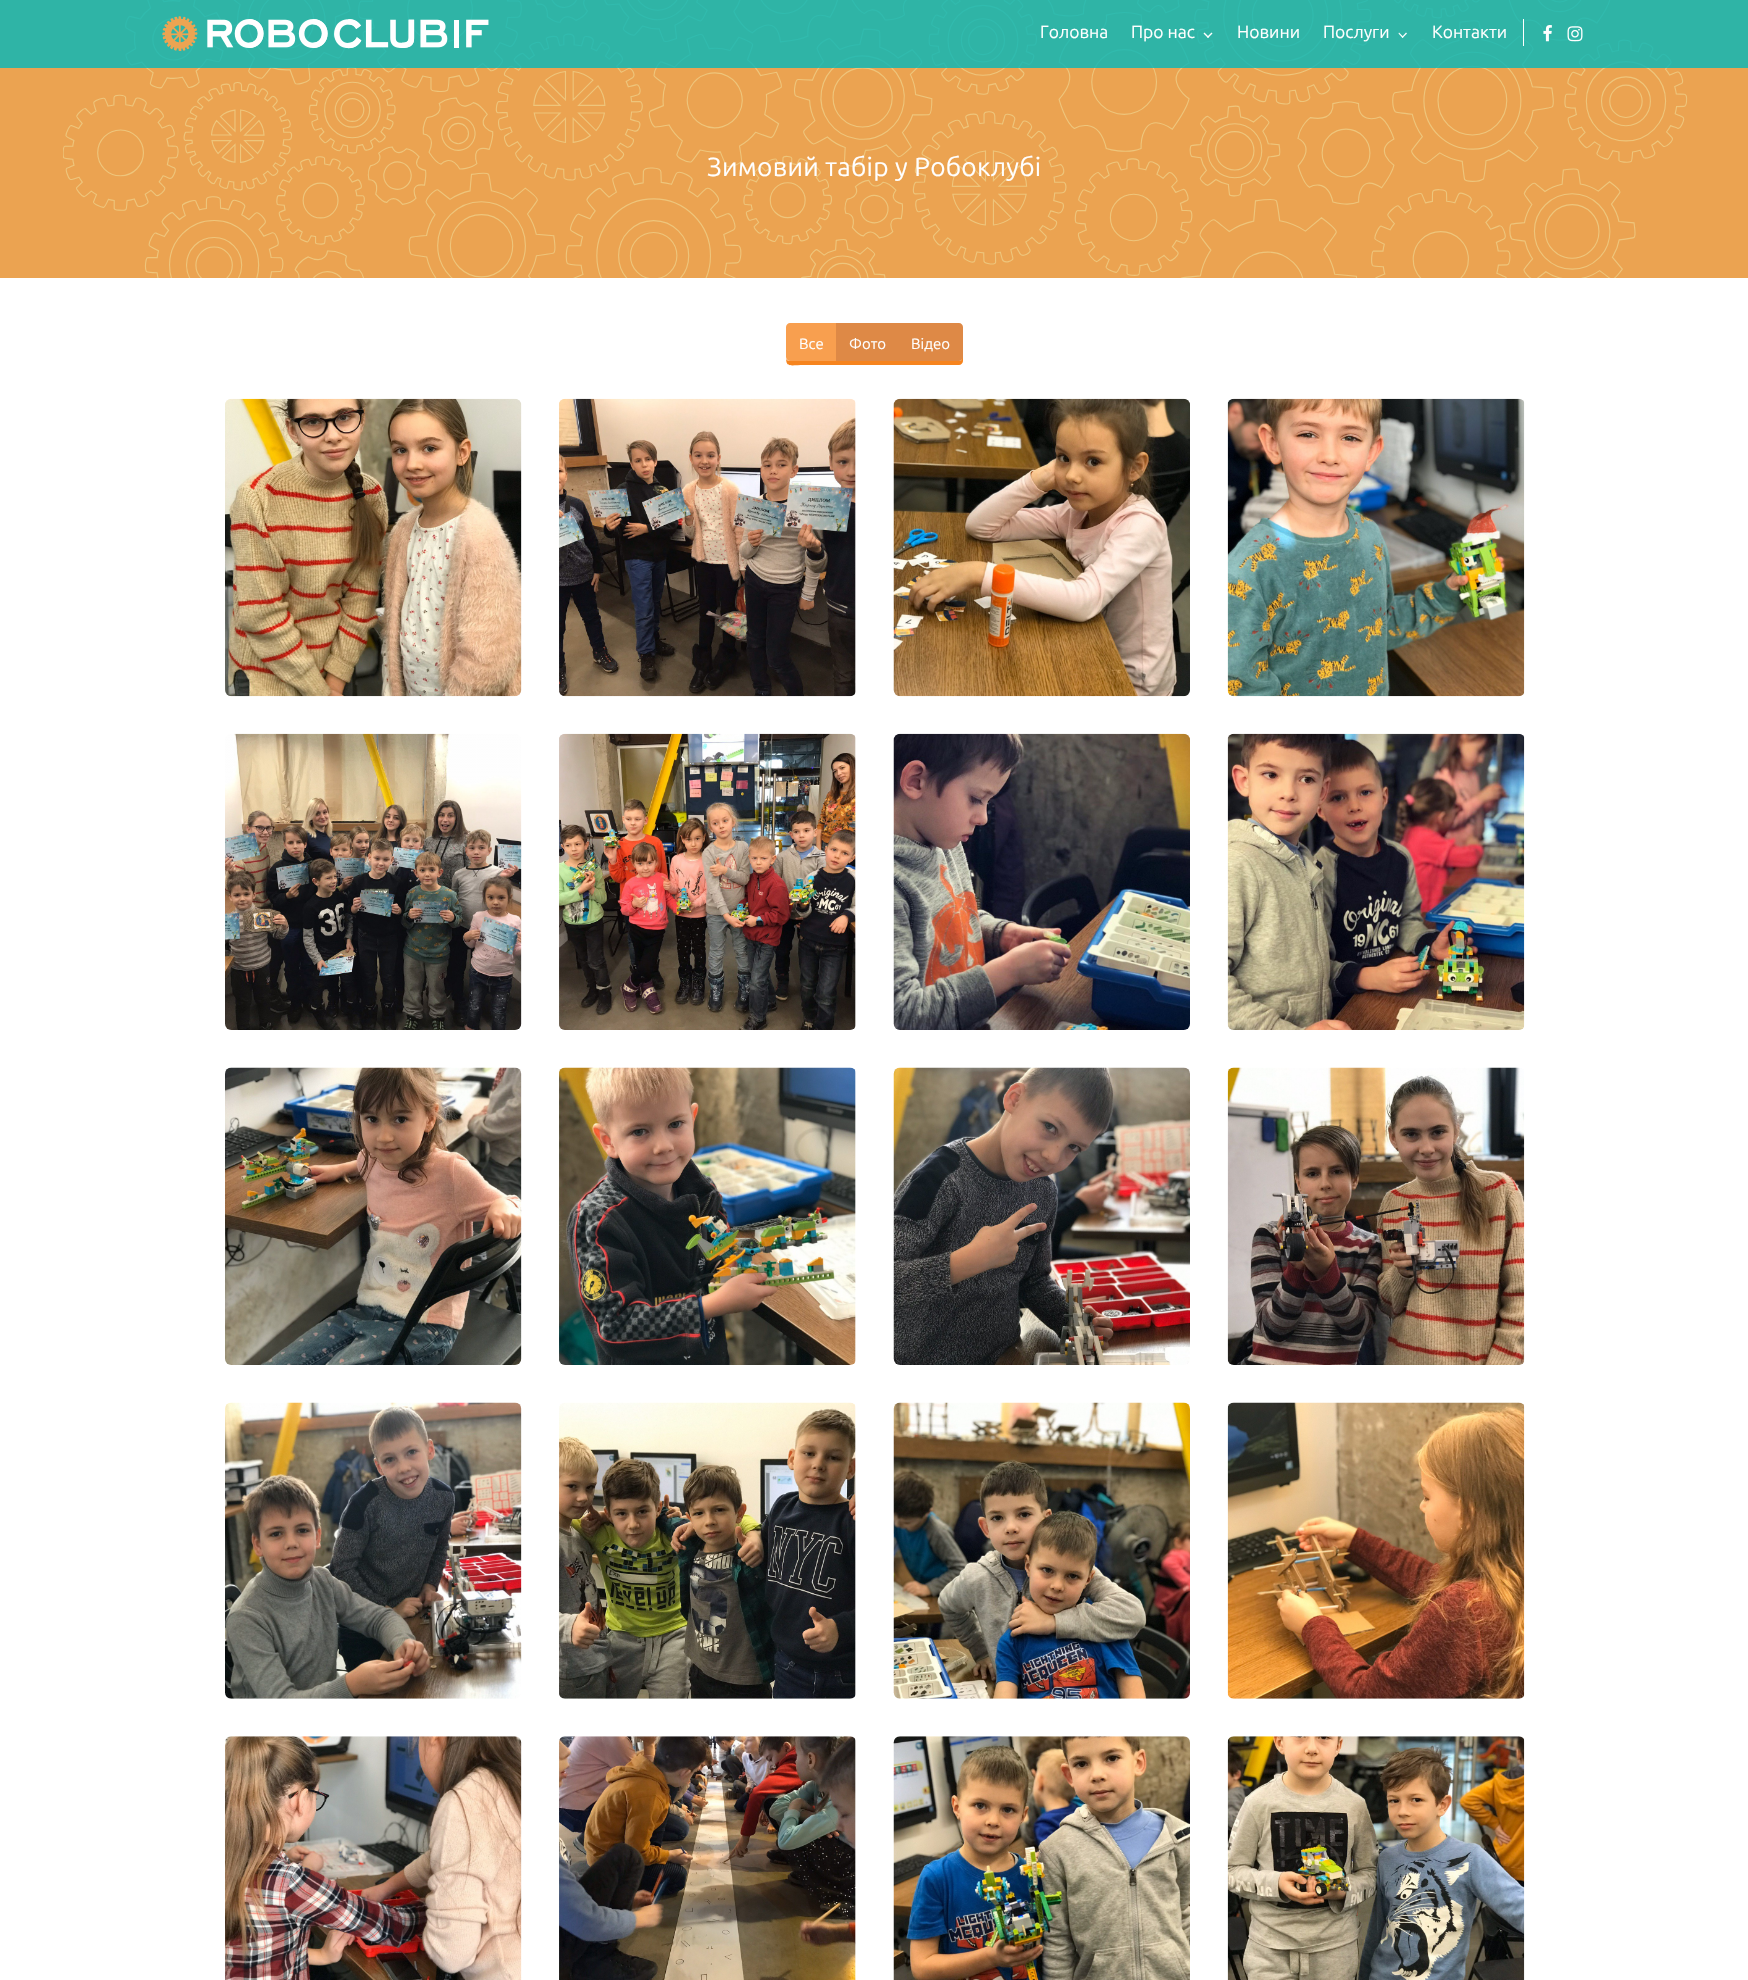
void draw(SkCanvas* canvas) {
    SkPaint paint;
    paint.setAntiAlias(true);
    auto spacedText = [&](const char* s, float x, float y, const SkFont& font, const SkPaint& ink, float letter, float word) {
        std::vector<SkGlyphID> glyphs(font.countText(s, strlen(s), SkTextEncoding::kUTF8));
        std::vector<float> xs(glyphs.size());
        font.textToGlyphs(s, strlen(s), SkTextEncoding::kUTF8, glyphs);
        font.getXPos(glyphs, xs, x);
        float extra = 0;
        for (size_t i = 0; i < glyphs.size(); i++) {
            xs[i] += extra;
            extra += letter + word * (glyphs[i] == font.unicharToGlyph(' '));
        }
        canvas->drawTextBlob(SkTextBlob::MakeFromPosHGlyphs(glyphs, xs, y, font), 0, 0, ink);
    };
    canvas->clear(0xFFFFFFFF);
    paint.setColor(0xFFEBA351);
    canvas->drawRect(SkRect::MakeXYWH(0, 0, 1748, 278), paint);
    canvas->drawImageRect(SkImages::DeferredFromEncodedData(SkData::MakeFromFileName("img4.png")), SkRect::MakeXYWH(63, 0, 1625, 278), SkSamplingOptions());
    paint.setColor(0xCC00B8BA);
    canvas->drawRect(SkRect::MakeXYWH(0, 0, 1748, 68), paint);
    canvas->drawImageRect(SkImages::DeferredFromEncodedData(SkData::MakeFromFileName("img1.png")), SkRect::MakeXYWH(162, 16, 327, 35), SkSamplingOptions());
    SkFont font1(fontMgr->matchFamilyStyle("Ubuntu", SkFontStyle::Normal()), 17.5f);
    font1.setSubpixel(true);
    paint.setColor(0xFFFFFFFF);
    canvas->drawString("Головна", 1040, 38, font1, paint);
    canvas->drawString("Про нас", 1131, 38, font1, paint);
    canvas->drawPath(SkPathBuilder().moveTo(1207, 37).lineTo(1211.5f, 32.5f).lineTo(1212.5f, 33.5f).lineTo(1208, 38).close().detach(), paint);
    canvas->drawPath(SkPathBuilder().moveTo(1203.5f, 33.5f).lineTo(1204.5f, 32.5f).lineTo(1209, 37).lineTo(1208, 38).close().detach(), paint);
    canvas->drawString("Новини", 1237, 38, font1, paint);
    canvas->drawString("Послуги", 1323, 38, font1, paint);
    canvas->drawPath(SkPathBuilder().moveTo(1402, 37).lineTo(1406, 32.5f).lineTo(1407, 33.5f).lineTo(1402.5f, 38).close().detach(), paint);
    canvas->drawPath(SkPathBuilder().moveTo(1398.5f, 33.5f).lineTo(1399, 32.5f).lineTo(1403.5f, 37).lineTo(1402.5f, 38).close().detach(), paint);
    canvas->drawString("Контакти", 1432, 38, font1, paint);
    canvas->drawRect(SkRect::MakeXYWH(1523, 19, 1, 27), paint);
    canvas->drawImageRect(SkImages::DeferredFromEncodedData(SkData::MakeFromFileName("img2.png")), SkRect::MakeXYWH(1543, 25, 9, 17), SkSamplingOptions());
    canvas->drawImageRect(SkImages::DeferredFromEncodedData(SkData::MakeFromFileName("img3.png")), SkRect::MakeXYWH(1567, 26, 16, 16), SkSamplingOptions());
    SkFont font2(fontMgr->matchFamilyStyle("Ubuntu", SkFontStyle::Normal()), 26.25f);
    font2.setSubpixel(true);
    spacedText("Зимовий табір у Робоклубі", 707, 176, font2, paint, 0.25f, 0);
    paint.setColor(0xFFF6841E);
    canvas->drawPath(SkPathBuilder().moveTo(786, 329).lineTo(786, 351).cubicTo(786, 369, 786, 365, 805, 365).lineTo(836, 365).lineTo(836, 361).lineTo(790, 361).cubicTo(788, 361, 786, 360, 786, 358).close().detach(), paint);
    paint.setColor(0xFFF89F4F);
    canvas->drawPath(SkPathBuilder().moveTo(790, 323).lineTo(836, 323).lineTo(836, 361).lineTo(790, 361).cubicTo(788, 361, 786, 359, 786, 357).lineTo(786, 327).cubicTo(786, 325, 788, 323, 790, 323).close().detach(), paint);
    SkFont font3(fontMgr->matchFamilyStyle("Ubuntu", SkFontStyle::Normal()), 15);
    font3.setSubpixel(true);
    paint.setColor(0xFFFFFFFF);
    canvas->drawString("Все", 799, 349, font3, paint);
    paint.setColor(0xFFF6841E);
    canvas->drawPath(SkPathBuilder().moveTo(836, 326).lineTo(836, 365).lineTo(899, 365).lineTo(899, 326).lineTo(899, 361).lineTo(836, 361).close().detach(), paint);
    paint.setColor(0xFFDE8946);
    canvas->drawRect(SkRect::MakeXYWH(836, 323, 63, 38), paint);
    paint.setColor(0xFFFFFFFF);
    canvas->drawString("Фото", 849, 349, font3, paint);
    paint.setColor(0xFFF6841E);
    canvas->drawPath(SkPathBuilder().moveTo(899, 361).lineTo(899, 365).lineTo(959, 365).cubicTo(961, 365, 963, 363, 963, 361).lineTo(963, 330).lineTo(962, 328).lineTo(962, 358).cubicTo(962, 360, 961, 361, 959, 361).close().detach(), paint);
    paint.setColor(0xFFDE8946);
    canvas->drawPath(SkPathBuilder().moveTo(899, 323).lineTo(959, 323).cubicTo(961, 323, 963, 325, 963, 327).lineTo(963, 357).cubicTo(963, 359, 961, 361, 959, 361).lineTo(899, 361).close().detach(), paint);
    paint.setColor(0xFFFFFFFF);
    canvas->drawString("Відео", 911, 349, font3, paint);
    canvas->drawImageRect(SkImages::DeferredFromEncodedData(SkData::MakeFromFileName("img5.png")), SkRect::MakeXYWH(225, 398, 297, 299), SkSamplingOptions());
    canvas->drawImageRect(SkImages::DeferredFromEncodedData(SkData::MakeFromFileName("img6.png")), SkRect::MakeXYWH(559, 398, 297, 299), SkSamplingOptions());
    canvas->drawImageRect(SkImages::DeferredFromEncodedData(SkData::MakeFromFileName("img7.png")), SkRect::MakeXYWH(893, 398, 297, 299), SkSamplingOptions());
    canvas->drawImageRect(SkImages::DeferredFromEncodedData(SkData::MakeFromFileName("img8.png")), SkRect::MakeXYWH(1227, 398, 298, 299), SkSamplingOptions());
    canvas->drawImageRect(SkImages::DeferredFromEncodedData(SkData::MakeFromFileName("img9.png")), SkRect::MakeXYWH(225, 733, 297, 297), SkSamplingOptions());
    canvas->drawImageRect(SkImages::DeferredFromEncodedData(SkData::MakeFromFileName("img10.png")), SkRect::MakeXYWH(559, 733, 297, 297), SkSamplingOptions());
    canvas->drawImageRect(SkImages::DeferredFromEncodedData(SkData::MakeFromFileName("img11.png")), SkRect::MakeXYWH(893, 733, 297, 297), SkSamplingOptions());
    canvas->drawImageRect(SkImages::DeferredFromEncodedData(SkData::MakeFromFileName("img12.png")), SkRect::MakeXYWH(1227, 733, 298, 297), SkSamplingOptions());
    canvas->drawImageRect(SkImages::DeferredFromEncodedData(SkData::MakeFromFileName("img13.png")), SkRect::MakeXYWH(225, 1067, 297, 298), SkSamplingOptions());
    canvas->drawImageRect(SkImages::DeferredFromEncodedData(SkData::MakeFromFileName("img14.png")), SkRect::MakeXYWH(559, 1067, 297, 298), SkSamplingOptions());
    canvas->drawImageRect(SkImages::DeferredFromEncodedData(SkData::MakeFromFileName("img15.png")), SkRect::MakeXYWH(893, 1067, 297, 298), SkSamplingOptions());
    canvas->drawImageRect(SkImages::DeferredFromEncodedData(SkData::MakeFromFileName("img16.png")), SkRect::MakeXYWH(1227, 1067, 298, 298), SkSamplingOptions());
    canvas->drawImageRect(SkImages::DeferredFromEncodedData(SkData::MakeFromFileName("img17.png")), SkRect::MakeXYWH(225, 1402, 297, 297), SkSamplingOptions());
    canvas->drawImageRect(SkImages::DeferredFromEncodedData(SkData::MakeFromFileName("img18.png")), SkRect::MakeXYWH(559, 1402, 297, 297), SkSamplingOptions());
    canvas->drawImageRect(SkImages::DeferredFromEncodedData(SkData::MakeFromFileName("img19.png")), SkRect::MakeXYWH(893, 1402, 297, 297), SkSamplingOptions());
    canvas->drawImageRect(SkImages::DeferredFromEncodedData(SkData::MakeFromFileName("img20.png")), SkRect::MakeXYWH(1227, 1402, 298, 297), SkSamplingOptions());
    canvas->drawImageRect(SkImages::DeferredFromEncodedData(SkData::MakeFromFileName("img21.png")), SkRect::MakeXYWH(225, 1736, 297, 244), SkSamplingOptions());
    canvas->drawImageRect(SkImages::DeferredFromEncodedData(SkData::MakeFromFileName("img22.png")), SkRect::MakeXYWH(559, 1736, 297, 244), SkSamplingOptions());
    canvas->drawImageRect(SkImages::DeferredFromEncodedData(SkData::MakeFromFileName("img23.png")), SkRect::MakeXYWH(893, 1736, 297, 244), SkSamplingOptions());
    canvas->drawImageRect(SkImages::DeferredFromEncodedData(SkData::MakeFromFileName("img24.png")), SkRect::MakeXYWH(1227, 1736, 298, 244), SkSamplingOptions());
}
